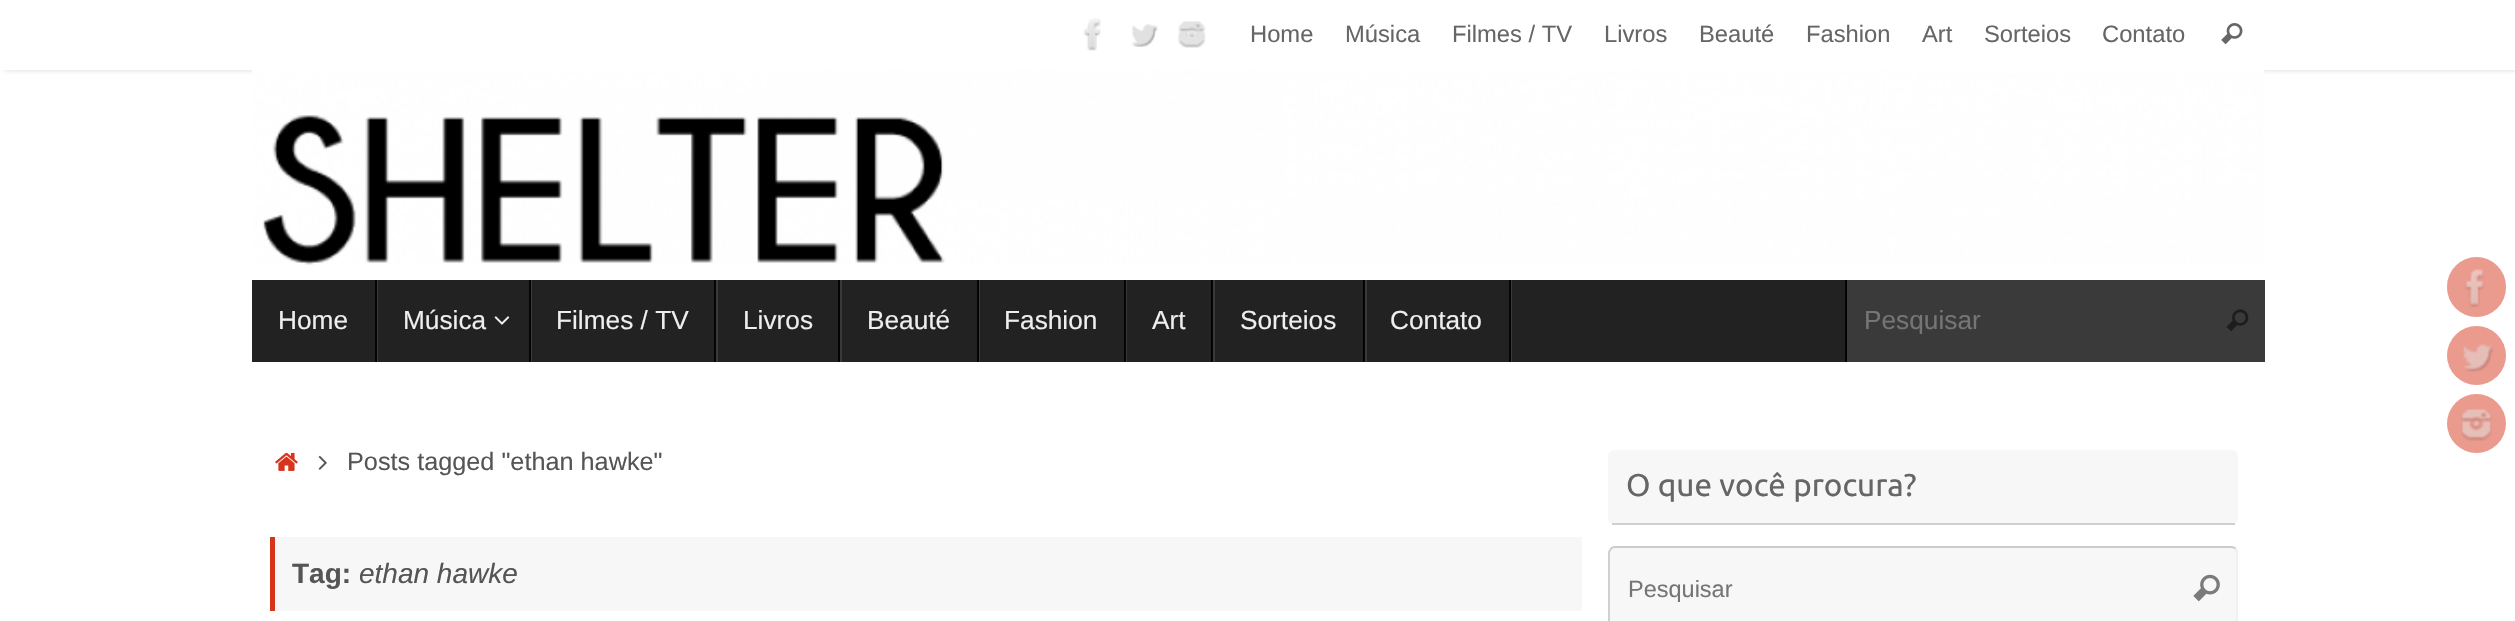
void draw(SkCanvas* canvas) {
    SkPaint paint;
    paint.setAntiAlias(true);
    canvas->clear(0xFFFFFFFF);
    canvas->save();
    canvas->clipRect(SkRect::MakeXYWH(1, 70, 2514, 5));
    paint.setColor(0xFFD7D7D7);
    paint.setMaskFilter(SkMaskFilter::MakeBlur(kNormal_SkBlurStyle, 2.5f));
    canvas->drawRect(SkRect::MakeXYWH(5, 0, 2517, 70), paint);
    paint.setMaskFilter(nullptr);
    canvas->restore();
    canvas->drawImageRect(SkImages::DeferredFromEncodedData(SkData::MakeFromFileName("img1.png")), SkRect::MakeXYWH(1083, 18, 18, 33), SkSamplingOptions());
    canvas->drawImageRect(SkImages::DeferredFromEncodedData(SkData::MakeFromFileName("img2.png")), SkRect::MakeXYWH(1132, 24, 26, 23), SkSamplingOptions());
    canvas->drawImageRect(SkImages::DeferredFromEncodedData(SkData::MakeFromFileName("img3.png")), SkRect::MakeXYWH(1178, 21, 28, 27), SkSamplingOptions());
    SkFont font1(fontMgr->matchFamilyStyle("Liberation Sans", SkFontStyle::Normal()), 23.75f);
    font1.setSubpixel(true);
    paint.setColor(0xFF666666);
    canvas->drawString("Home", 1250, 42, font1, paint);
    canvas->drawString("Música", 1345, 42, font1, paint);
    canvas->drawString("Filmes / TV", 1452, 42, font1, paint);
    canvas->drawString("Livros", 1604, 42, font1, paint);
    canvas->drawString("Beauté", 1699, 42, font1, paint);
    canvas->drawString("Fashion", 1806, 42, font1, paint);
    canvas->drawString("Art", 1922, 42, font1, paint);
    canvas->drawString("Sorteios", 1984, 42, font1, paint);
    canvas->drawString("Contato", 2102, 42, font1, paint);
    canvas->drawImageRect(SkImages::DeferredFromEncodedData(SkData::MakeFromFileName("img4.png")), SkRect::MakeXYWH(2221, 23, 22, 22), SkSamplingOptions());
    canvas->drawImageRect(SkImages::DeferredFromEncodedData(SkData::MakeFromFileName("img5.png")), SkRect::MakeXYWH(252, 70, 2013, 195), SkSamplingOptions());
    paint.setColor(0xFF222222);
    canvas->drawRect(SkRect::MakeXYWH(252, 280, 1593, 82), paint);
    paint.setColor(0xFF3A3A3A);
    canvas->drawRect(SkRect::MakeXYWH(377, 280, 1, 82), paint);
    paint.setColor(0xFF040404);
    canvas->drawRect(SkRect::MakeXYWH(375, 280, 2, 82), paint);
    SkFont font2(fontMgr->matchFamilyStyle("Liberation Sans", SkFontStyle::Normal()), 26.25f);
    font2.setSubpixel(true);
    paint.setColor(0xFFEEEEEE);
    canvas->drawString("Home", 278, 329, font2, paint);
    paint.setColor(0xFF3A3A3A);
    canvas->drawRect(SkRect::MakeXYWH(531, 280, 1, 82), paint);
    paint.setColor(0xFF040404);
    canvas->drawRect(SkRect::MakeXYWH(529, 280, 2, 82), paint);
    paint.setColor(0xFFEEEEEE);
    canvas->drawString("Música", 403, 329, font2, paint);
    canvas->drawImageRect(SkImages::DeferredFromEncodedData(SkData::MakeFromFileName("img6.png")), SkRect::MakeXYWH(494, 316, 16, 9), SkSamplingOptions());
    paint.setColor(0xFF3A3A3A);
    canvas->drawRect(SkRect::MakeXYWH(716, 280, 2, 82), paint);
    paint.setColor(0xFF040404);
    canvas->drawRect(SkRect::MakeXYWH(714, 280, 2, 82), paint);
    paint.setColor(0xFFEEEEEE);
    canvas->drawString("Filmes / TV", 556, 329, font2, paint);
    paint.setColor(0xFF3A3A3A);
    canvas->drawRect(SkRect::MakeXYWH(840, 280, 2, 82), paint);
    paint.setColor(0xFF040404);
    canvas->drawRect(SkRect::MakeXYWH(838, 280, 2, 82), paint);
    paint.setColor(0xFFEEEEEE);
    canvas->drawString("Livros", 743, 329, font2, paint);
    paint.setColor(0xFF3A3A3A);
    canvas->drawRect(SkRect::MakeXYWH(979, 280, 1, 82), paint);
    paint.setColor(0xFF040404);
    canvas->drawRect(SkRect::MakeXYWH(977, 280, 2, 82), paint);
    paint.setColor(0xFFEEEEEE);
    canvas->drawString("Beauté", 867, 329, font2, paint);
    paint.setColor(0xFF3A3A3A);
    canvas->drawRect(SkRect::MakeXYWH(1126, 280, 1, 82), paint);
    paint.setColor(0xFF040404);
    canvas->drawRect(SkRect::MakeXYWH(1124, 280, 2, 82), paint);
    paint.setColor(0xFFEEEEEE);
    canvas->drawString("Fashion", 1004, 329, font2, paint);
    paint.setColor(0xFF3A3A3A);
    canvas->drawRect(SkRect::MakeXYWH(1213, 280, 2, 82), paint);
    paint.setColor(0xFF040404);
    canvas->drawRect(SkRect::MakeXYWH(1211, 280, 2, 82), paint);
    paint.setColor(0xFFEEEEEE);
    canvas->drawString("Art", 1152, 329, font2, paint);
    paint.setColor(0xFF3A3A3A);
    canvas->drawRect(SkRect::MakeXYWH(1365, 280, 2, 82), paint);
    paint.setColor(0xFF040404);
    canvas->drawRect(SkRect::MakeXYWH(1363, 280, 2, 82), paint);
    paint.setColor(0xFFEEEEEE);
    canvas->drawString("Sorteios", 1240, 329, font2, paint);
    paint.setColor(0xFF3A3A3A);
    canvas->drawRect(SkRect::MakeXYWH(1511, 280, 1, 82), paint);
    paint.setColor(0xFF040404);
    canvas->drawRect(SkRect::MakeXYWH(1509, 280, 2, 82), paint);
    paint.setColor(0xFFEEEEEE);
    canvas->drawString("Contato", 1390, 329, font2, paint);
    paint.setColor(0xFF3A3A3A);
    canvas->drawRect(SkRect::MakeXYWH(1847, 280, 418, 82), paint);
    paint.setColor(0xFF040404);
    canvas->drawRect(SkRect::MakeXYWH(1845, 280, 2, 82), paint);
    canvas->save();
    canvas->clipRect(SkRect::MakeXYWH(1864, 305, 324, 29));
    paint.setColor(0xFF757575);
    canvas->drawString("Pesquisar", 1864, 329, font2, paint);
    canvas->restore();
    canvas->drawImageRect(SkImages::DeferredFromEncodedData(SkData::MakeFromFileName("img7.png")), SkRect::MakeXYWH(2226, 309, 23, 22), SkSamplingOptions());
    paint.setColor(0xFFEB9A8E);
    canvas->drawRoundRect(SkRect::MakeXYWH(2447, 257, 59, 60), 29.5f, 29.5f, paint);
    canvas->drawImageRect(SkImages::DeferredFromEncodedData(SkData::MakeFromFileName("img8.png")), SkRect::MakeXYWH(2464, 269, 21, 39), SkSamplingOptions());
    canvas->drawCircle(2476.5f, 355.5f, 29.5f, paint);
    canvas->drawImageRect(SkImages::DeferredFromEncodedData(SkData::MakeFromFileName("img9.png")), SkRect::MakeXYWH(2463, 344, 31, 28), SkSamplingOptions());
    canvas->drawCircle(2476.5f, 423.5f, 29.5f, paint);
    canvas->drawImageRect(SkImages::DeferredFromEncodedData(SkData::MakeFromFileName("img10.png")), SkRect::MakeXYWH(2461, 409, 31, 32), SkSamplingOptions());
    canvas->drawImageRect(SkImages::DeferredFromEncodedData(SkData::MakeFromFileName("img11.png")), SkRect::MakeXYWH(275, 452, 23, 19), SkSamplingOptions());
    canvas->drawImageRect(SkImages::DeferredFromEncodedData(SkData::MakeFromFileName("img12.png")), SkRect::MakeXYWH(318, 455, 9, 15), SkSamplingOptions());
    SkFont font3(fontMgr->matchFamilyStyle("Liberation Sans", SkFontStyle::Normal()), 25.25f);
    font3.setSubpixel(true);
    paint.setColor(0xFF555555);
    canvas->drawString("Posts tagged \"ethan hawke\"", 347, 470, font3, paint);
    paint.setColor(0xFFF7F7F7);
    canvas->drawRect(SkRect::MakeXYWH(275, 537, 1307, 74), paint);
    paint.setColor(0xFFD6341D);
    canvas->drawRect(SkRect::MakeXYWH(270, 537, 5, 74), paint);
    SkFont font4(fontMgr->matchFamilyStyle("Liberation Sans", SkFontStyle::Bold()), 28);
    font4.setSubpixel(true);
    paint.setColor(0xFF555555);
    canvas->drawString("Tag:", 292, 583, font4, paint);
    SkFont font5(fontMgr->matchFamilyStyle("Liberation Sans", SkFontStyle::Italic()), 28);
    font5.setSubpixel(true);
    canvas->drawString("ethan hawke", 359, 583, font5, paint);
    paint.setColor(0xFFF7F7F7);
    canvas->drawRoundRect(SkRect::MakeXYWH(1608, 450, 630, 75), 7, 7, paint);
    paint.setColor(0xFFCFCFCF);
    canvas->drawRect(SkRect::MakeXYWH(1612, 523, 623, 2), paint);
    SkFont font6(fontMgr->matchFamilyStyle("Ubuntu", SkFontStyle::Normal()), 31.5f);
    font6.setSubpixel(true);
    paint.setColor(0xFF666666);
    canvas->drawString("O que você procura?", 1626, 496, font6, paint);
    paint.setColor(0xFFF7F7F7);
    canvas->drawRoundRect(SkRect::MakeXYWH(1608, 546, 630, 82), 7, 7, paint);
    canvas->save();
    canvas->clipRect(SkRect::MakeXYWH(1608, 546, 630, 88));
    paint.setStyle(SkPaint::kStroke_Style);
    paint.setStrokeWidth(1.8f);
    paint.setColor(0xFFEEEEEE);
    canvas->drawPath(SkPathBuilder().moveTo(2235.5f, 548.5f).cubicTo(2236.5f, 550, 2237.5f, 551.5f, 2237.5f, 553).lineTo(2237.5f, 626.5f).cubicTo(2237.5f, 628, 2236.5f, 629.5f, 2235.5f, 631).cubicTo(2234.5f, 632, 2233, 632.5f, 2231, 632.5f).lineTo(1615, 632.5f).cubicTo(1613.5f, 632.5f, 1612, 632, 1611, 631).detach(), paint);
    canvas->restore();
    paint.setColor(0xFFCCCCCC);
    canvas->drawPath(SkPathBuilder().moveTo(1611, 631).cubicTo(1610, 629.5f, 1609, 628, 1609, 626.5f).lineTo(1609, 553).cubicTo(1609, 551.5f, 1610, 550, 1611, 548.5f).cubicTo(1612, 547.5f, 1613.5f, 547, 1615, 547).lineTo(2231, 547).cubicTo(2233, 547, 2234.5f, 547.5f, 2235.5f, 548.5f).detach(), paint);
    SkFont font7(fontMgr->matchFamilyStyle("Liberation Sans", SkFontStyle::Normal()), 23.5f);
    font7.setSubpixel(true);
    paint.setStyle(SkPaint::kFill_Style);
    paint.setColor(0xFF757575);
    canvas->drawString("Pesquisar", 1628, 597, font7, paint);
    canvas->drawImageRect(SkImages::DeferredFromEncodedData(SkData::MakeFromFileName("img13.png")), SkRect::MakeXYWH(2193, 574, 27, 28), SkSamplingOptions());
}
